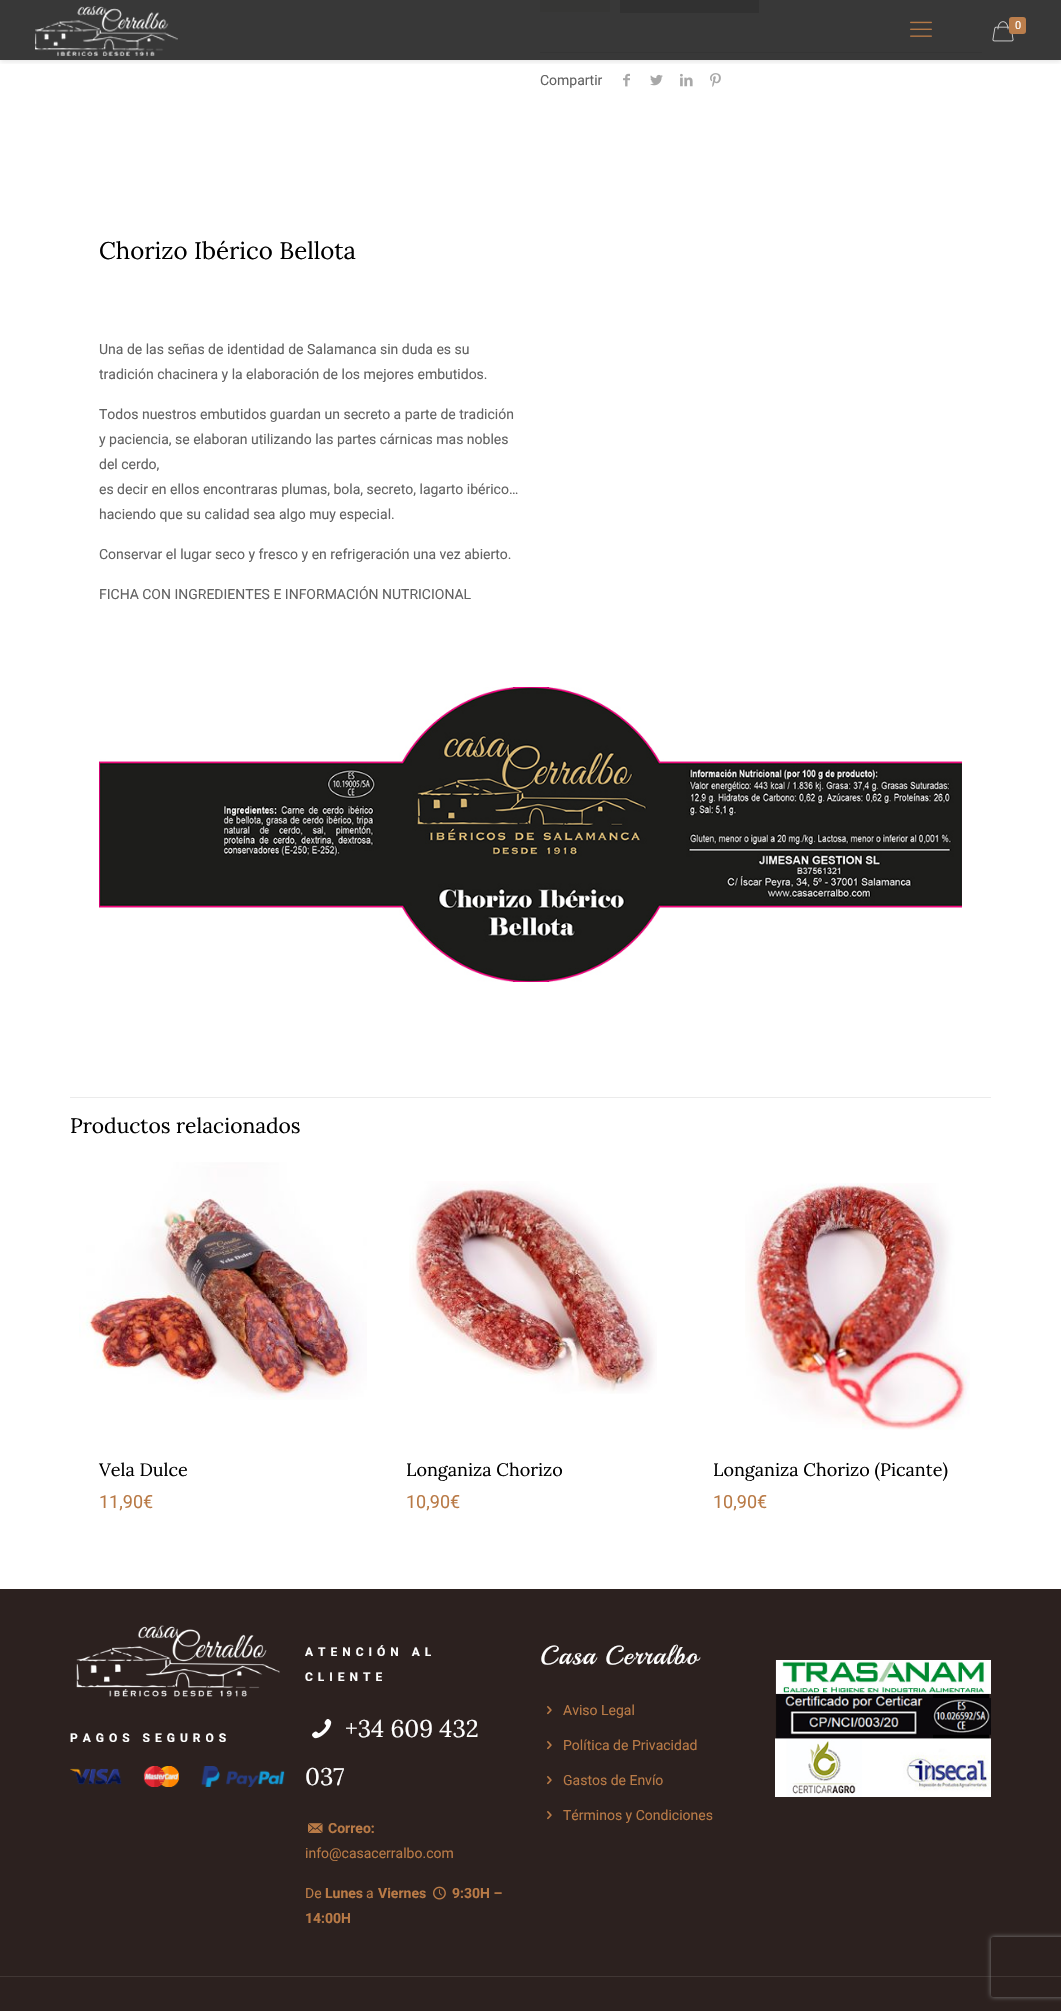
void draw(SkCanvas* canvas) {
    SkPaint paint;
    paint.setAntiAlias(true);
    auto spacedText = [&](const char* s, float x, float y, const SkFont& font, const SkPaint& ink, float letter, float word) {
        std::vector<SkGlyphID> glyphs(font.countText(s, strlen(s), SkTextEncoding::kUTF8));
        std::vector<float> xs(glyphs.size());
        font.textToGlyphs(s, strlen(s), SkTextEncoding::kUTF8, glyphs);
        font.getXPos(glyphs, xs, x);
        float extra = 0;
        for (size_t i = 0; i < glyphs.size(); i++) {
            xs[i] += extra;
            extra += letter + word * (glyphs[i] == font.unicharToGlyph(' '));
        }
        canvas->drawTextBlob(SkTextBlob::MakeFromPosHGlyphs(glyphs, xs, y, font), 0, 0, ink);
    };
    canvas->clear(0xFFFFFFFF);
    paint.setColor(0xFF383838);
    canvas->drawRect(SkRect::MakeXYWH(0, 0, 1061, 60), paint);
    paint.setColor(0xFF363635);
    canvas->drawRect(SkRect::MakeXYWH(540, 0, 70, 12), paint);
    paint.setColor(0xFF313131);
    canvas->drawRect(SkRect::MakeXYWH(620, 0, 139, 13), paint);
    paint.setColor(0xFF343434);
    canvas->drawRect(SkRect::MakeXYWH(540, 52, 442, 1), paint);
    canvas->save();
    canvas->clipRect(SkRect::MakeXYWH(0, 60, 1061, 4));
    paint.setColor(0x1A080808);
    paint.setMaskFilter(SkMaskFilter::MakeBlur(kNormal_SkBlurStyle, 2.5f));
    canvas->drawRect(SkRect::MakeXYWH(0, 2, 1061, 60), paint);
    paint.setMaskFilter(nullptr);
    canvas->restore();
    canvas->drawImageRect(SkImages::DeferredFromEncodedData(SkData::MakeFromFileName("img1.png")), SkRect::MakeXYWH(35, 6, 143, 50), SkSamplingOptions());
    canvas->drawImageRect(SkImages::DeferredFromEncodedData(SkData::MakeFromFileName("img2.png")), SkRect::MakeXYWH(910, 21, 22, 16), SkSamplingOptions());
    canvas->drawImageRect(SkImages::DeferredFromEncodedData(SkData::MakeFromFileName("img3.png")), SkRect::MakeXYWH(992, 21, 22, 21), SkSamplingOptions());
    paint.setColor(0xFFBB7E4C);
    canvas->drawRoundRect(SkRect::MakeXYWH(1009, 17, 17, 17), 3, 3, paint);
    SkFont font1(fontMgr->matchFamilyStyle("Roboto", SkFontStyle::Normal()), 11);
    font1.setSubpixel(true);
    paint.setColor(0xFFFFFFFF);
    canvas->drawString("0", 1015, 29, font1, paint);
    SkFont font2(fontMgr->matchFamilyStyle("Roboto", SkFontStyle::Normal()), 14);
    font2.setSubpixel(true);
    paint.setColor(0xFF626262);
    canvas->drawString("Compartir", 540, 85, font2, paint);
    canvas->drawImageRect(SkImages::DeferredFromEncodedData(SkData::MakeFromFileName("img4.png")), SkRect::MakeXYWH(623, 73, 7, 14), SkSamplingOptions());
    canvas->drawImageRect(SkImages::DeferredFromEncodedData(SkData::MakeFromFileName("img5.png")), SkRect::MakeXYWH(650, 74, 13, 12), SkSamplingOptions());
    canvas->drawImageRect(SkImages::DeferredFromEncodedData(SkData::MakeFromFileName("img6.png")), SkRect::MakeXYWH(680, 73, 13, 14), SkSamplingOptions());
    canvas->drawImageRect(SkImages::DeferredFromEncodedData(SkData::MakeFromFileName("img7.png")), SkRect::MakeXYWH(710, 73, 11, 14), SkSamplingOptions());
    SkFont font3(fontMgr->matchFamilyStyle("Lora", SkFontStyle::Normal()), 24);
    font3.setSubpixel(true);
    paint.setColor(0xFF000000);
    canvas->drawString("Chorizo Ibérico Bellota", 99, 259, font3, paint);
    paint.setColor(0xFF626262);
    canvas->drawString("Una de las señas de identidad de Salamanca sin duda es su", 99, 354, font2, paint);
    canvas->drawString("tradición chacinera y la elaboración de los mejores embutidos.", 99, 379, font2, paint);
    canvas->drawString("Todos nuestros embutidos guardan un secreto a parte de tradición", 99, 419, font2, paint);
    canvas->drawString("y paciencia, se elaboran utilizando las partes cárnicas mas nobles", 99, 444, font2, paint);
    canvas->drawString("del cerdo,", 99, 469, font2, paint);
    canvas->drawString("es decir en ellos encontraras plumas, bola, secreto, lagarto ibérico…", 99, 494, font2, paint);
    canvas->drawString("haciendo que su calidad sea algo muy especial.", 99, 519, font2, paint);
    canvas->drawString("Conservar el lugar seco y fresco y en refrigeración una vez abierto.", 99, 559, font2, paint);
    canvas->drawString("FICHA CON INGREDIENTES E INFORMACIÓN NUTRICIONAL", 99, 599, font2, paint);
    canvas->drawImageRect(SkImages::DeferredFromEncodedData(SkData::MakeFromFileName("img8.png")), SkRect::MakeXYWH(99, 687, 863, 295), SkSamplingOptions());
    paint.setColor(0xFFEBEBEB);
    canvas->drawRect(SkRect::MakeXYWH(70, 1097, 921, 1), paint);
    SkFont font4(fontMgr->matchFamilyStyle("Lora", SkFontStyle::Normal()), 21);
    font4.setSubpixel(true);
    paint.setColor(0xFF000000);
    canvas->drawString("Productos relacionados", 70, 1133, font4, paint);
    canvas->drawImageRect(SkImages::DeferredFromEncodedData(SkData::MakeFromFileName("img9.png")), SkRect::MakeXYWH(79, 1162, 288, 238), SkSamplingOptions());
    SkFont font5(fontMgr->matchFamilyStyle("Lora", SkFontStyle::Normal()), 18);
    font5.setSubpixel(true);
    canvas->drawString("Vela Dulce", 99, 1476, font5, paint);
    SkFont font6(fontMgr->matchFamilyStyle("Roboto", SkFontStyle::Normal()), 18);
    font6.setSubpixel(true);
    paint.setColor(0xFFB97A46);
    canvas->drawString("11,90€", 99, 1508, font6, paint);
    canvas->drawImageRect(SkImages::DeferredFromEncodedData(SkData::MakeFromFileName("img10.png")), SkRect::MakeXYWH(409, 1181, 248, 213), SkSamplingOptions());
    paint.setColor(0xFF000000);
    canvas->drawString("Longaniza Chorizo", 406, 1476, font5, paint);
    paint.setColor(0xFFB97A46);
    canvas->drawString("10,90€", 406, 1508, font6, paint);
    canvas->drawImageRect(SkImages::DeferredFromEncodedData(SkData::MakeFromFileName("img11.png")), SkRect::MakeXYWH(745, 1183, 225, 247), SkSamplingOptions());
    paint.setColor(0xFF000000);
    canvas->drawString("Longaniza Chorizo (Picante)", 713, 1476, font5, paint);
    paint.setColor(0xFFB97A46);
    canvas->drawString("10,90€", 713, 1508, font6, paint);
    paint.setColor(0xFF2C211F);
    canvas->drawRect(SkRect::MakeXYWH(0, 1589, 1061, 422), paint);
    canvas->drawImageRect(SkImages::DeferredFromEncodedData(SkData::MakeFromFileName("img12.png")), SkRect::MakeXYWH(76, 1625, 204, 72), SkSamplingOptions());
    SkFont font7(fontMgr->matchFamilyStyle("Roboto", SkFontStyle::Bold()), 12);
    font7.setSubpixel(true);
    paint.setColor(0xFFFFFFFF);
    spacedText("PAGOS SEGUROS", 70, 1742, font7, paint, 5, 0);
    canvas->drawImageRect(SkImages::DeferredFromEncodedData(SkData::MakeFromFileName("img13.png")), SkRect::MakeXYWH(70, 1766, 215, 21), SkSamplingOptions());
    spacedText("ATENCIÓN AL", 305, 1656, font7, paint, 5, 0);
    spacedText("CLIENTE", 305, 1681, font7, paint, 5, 0);
    canvas->drawImageRect(SkImages::DeferredFromEncodedData(SkData::MakeFromFileName("img14.png")), SkRect::MakeXYWH(312, 1719, 20, 20), SkSamplingOptions());
    canvas->drawString("+34 609 432", 345, 1737, font3, paint);
    canvas->drawString("037", 305, 1785, font3, paint);
    canvas->drawImageRect(SkImages::DeferredFromEncodedData(SkData::MakeFromFileName("img15.png")), SkRect::MakeXYWH(308, 1823, 15, 10), SkSamplingOptions());
    SkFont font8(fontMgr->matchFamilyStyle("Roboto", SkFontStyle::Bold()), 14);
    font8.setSubpixel(true);
    paint.setColor(0xFFB97A46);
    canvas->drawString("Correo:", 328, 1833, font8, paint);
    canvas->drawString("info@casacerralbo.com", 305, 1858, font2, paint);
    canvas->drawString("Viernes", 378, 1898, font8, paint);
    canvas->drawImageRect(SkImages::DeferredFromEncodedData(SkData::MakeFromFileName("img16.png")), SkRect::MakeXYWH(433, 1886, 13, 14), SkSamplingOptions());
    canvas->drawString("9:30H –", 452, 1898, font8, paint);
    canvas->drawString("14:00H", 305, 1923, font8, paint);
    canvas->drawString("De", 305, 1898, font2, paint);
    canvas->drawString("Lunes", 325, 1898, font8, paint);
    canvas->drawString("a", 366, 1898, font2, paint);
    SkFont font9(fontMgr->matchFamilyStyle("Playball", SkFontStyle::Normal()), 26);
    font9.setSubpixel(true);
    paint.setColor(0xFFFFFFFF);
    spacedText("Casa Cerralbo", 540, 1664, font9, paint, 1, 0);
    canvas->drawImageRect(SkImages::DeferredFromEncodedData(SkData::MakeFromFileName("img17.png")), SkRect::MakeXYWH(547, 1706, 5, 9), SkSamplingOptions());
    paint.setColor(0xFFB97A46);
    canvas->drawString("Aviso Legal", 563, 1715, font2, paint);
    canvas->drawImageRect(SkImages::DeferredFromEncodedData(SkData::MakeFromFileName("img17.png")), SkRect::MakeXYWH(547, 1741, 5, 9), SkSamplingOptions());
    canvas->drawString("Política de Privacidad", 563, 1750, font2, paint);
    canvas->drawImageRect(SkImages::DeferredFromEncodedData(SkData::MakeFromFileName("img17.png")), SkRect::MakeXYWH(547, 1776, 5, 9), SkSamplingOptions());
    canvas->drawString("Gastos de Envío", 563, 1785, font2, paint);
    canvas->drawImageRect(SkImages::DeferredFromEncodedData(SkData::MakeFromFileName("img17.png")), SkRect::MakeXYWH(547, 1811, 5, 9), SkSamplingOptions());
    canvas->drawString("Términos y Condiciones", 563, 1820, font2, paint);
    canvas->drawImageRect(SkImages::DeferredFromEncodedData(SkData::MakeFromFileName("img18.png")), SkRect::MakeXYWH(775, 1660, 216, 137), SkSamplingOptions());
    paint.setColor(0xFF413735);
    canvas->drawRect(SkRect::MakeXYWH(0, 1976, 1061, 1), paint);
    canvas->save();
    canvas->clipPath(SkPathBuilder(SkPathFillType::kEvenOdd).moveTo(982, 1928).lineTo(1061, 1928).lineTo(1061, 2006).lineTo(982, 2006).close().moveTo(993, 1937).lineTo(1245, 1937).cubicTo(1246, 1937, 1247, 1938, 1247, 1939).lineTo(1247, 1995).cubicTo(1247, 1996, 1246, 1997, 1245, 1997).lineTo(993, 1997).cubicTo(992, 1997, 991, 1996, 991, 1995).lineTo(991, 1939).cubicTo(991, 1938, 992, 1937, 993, 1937).close().detach(), true);
    paint.setColor(0xFF808080);
    paint.setMaskFilter(SkMaskFilter::MakeBlur(kNormal_SkBlurStyle, 2.5f));
    canvas->drawRoundRect(SkRect::MakeXYWH(991, 1937, 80, 60), 2, 2, paint);
    paint.setMaskFilter(nullptr);
    canvas->restore();
}
